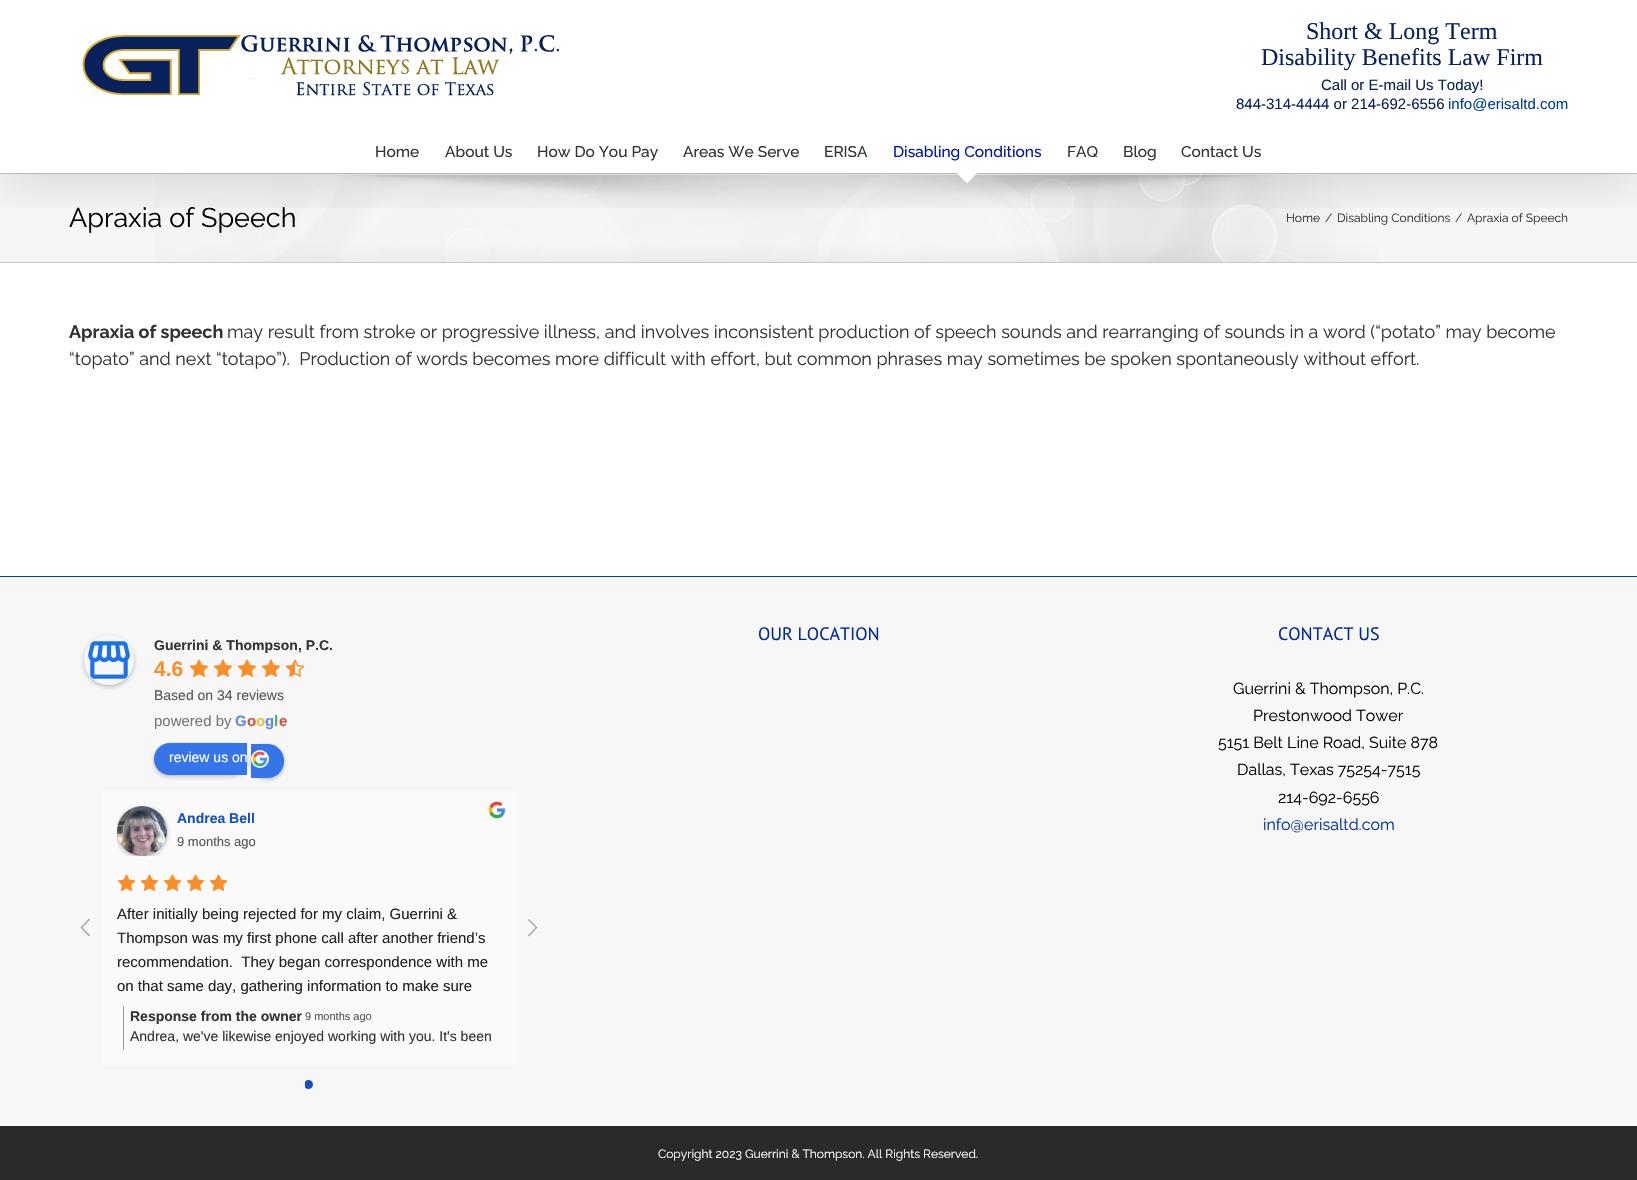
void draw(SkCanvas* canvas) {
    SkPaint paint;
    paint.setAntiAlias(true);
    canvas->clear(0xFFFFFFFF);
    paint.setColor(0xFFF6F6F6);
    canvas->drawRect(SkRect::MakeXYWH(0, 174, 1637, 88), paint);
    canvas->drawImageRect(SkImages::DeferredFromEncodedData(SkData::MakeFromFileName("img2.png")), SkRect::MakeXYWH(155, 175, 1222, 87), SkSamplingOptions());
    paint.setColor(0xFFC7C9C9);
    canvas->drawRect(SkRect::MakeXYWH(0, 173, 1637, 1), paint);
    canvas->save();
    canvas->clipRect(SkRect::MakeXYWH(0, 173, 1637, 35));
    paint.setColor(0x24000000);
    paint.setMaskFilter(SkMaskFilter::MakeBlur(kNormal_SkBlurStyle, 25));
    canvas->drawRect(SkRect::MakeXYWH(2, 12, 1633, 169), paint);
    paint.setMaskFilter(nullptr);
    canvas->restore();
    canvas->drawImageRect(SkImages::DeferredFromEncodedData(SkData::MakeFromFileName("img1.png")), SkRect::MakeXYWH(82, 35, 478, 61), SkSamplingOptions());
    SkFont font1(fontMgr->matchFamilyStyle("Liberation Serif", SkFontStyle::Normal()), 24);
    font1.setSubpixel(true);
    paint.setColor(0xFF08205C);
    canvas->drawString("Short & Long Term", 1306, 39, font1, paint);
    canvas->drawString("Disability Benefits Law Firm", 1261, 65, font1, paint);
    SkFont font2(fontMgr->matchFamilyStyle("Liberation Sans", SkFontStyle::Normal()), 15);
    font2.setSubpixel(true);
    canvas->drawString("Call or E-mail Us Today!", 1321, 90, font2, paint);
    canvas->drawString("844-314-4444 or 214-692-6556", 1236, 109, font2, paint);
    paint.setColor(0xFF013FA3);
    canvas->drawString("info@erisaltd.com", 1448, 109, font2, paint);
    SkFont font3(fontMgr->matchFamilyStyle("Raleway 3", SkFontStyle(100, SkFontStyle::kNormal_Width, SkFontStyle::kUpright_Slant)), 15.5f);
    font3.setSubpixel(true);
    paint.setColor(0xFF333333);
    canvas->drawString("Home", 375, 157, font3, paint);
    canvas->drawString("About Us", 445, 157, font3, paint);
    canvas->drawString("How Do You Pay", 537, 157, font3, paint);
    canvas->drawString("Areas We Serve", 683, 157, font3, paint);
    canvas->drawString("ERISA", 824, 157, font3, paint);
    paint.setColor(0xFF0115AA);
    canvas->drawString("Disabling Conditions", 893, 157, font3, paint);
    canvas->save();
    canvas->clipRect(SkRect::MakeXYWH(956, 172, 23, 11));
    paint.setColor(0xFFFFFFFF);
    canvas->drawPath(SkPathBuilder().moveTo(955.5f, 171).lineTo(967, 183).lineTo(978.5f, 171).close().detach(), paint);
    paint.setStyle(SkPaint::kStroke_Style);
    paint.setStrokeWidth(1);
    canvas->drawPath(SkPathBuilder().moveTo(955.5f, 171).lineTo(967, 183).lineTo(978.5f, 171).close().detach(), paint);
    canvas->restore();
    paint.setStyle(SkPaint::kFill_Style);
    paint.setColor(0xFF333333);
    canvas->drawString("FAQ", 1067, 157, font3, paint);
    canvas->drawString("Blog", 1123, 157, font3, paint);
    canvas->drawString("Contact Us", 1181, 157, font3, paint);
    paint.setColor(0xFFC7C9C9);
    canvas->drawRect(SkRect::MakeXYWH(0, 262, 1637, 1), paint);
    SkFont font4(fontMgr->matchFamilyStyle("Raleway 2", SkFontStyle(100, SkFontStyle::kNormal_Width, SkFontStyle::kUpright_Slant)), 27);
    font4.setSubpixel(true);
    paint.setColor(0xFF000000);
    canvas->drawString("Apraxia of Speech", 69, 227, font4, paint);
    SkFont font5(fontMgr->matchFamilyStyle("Raleway 2", SkFontStyle(100, SkFontStyle::kNormal_Width, SkFontStyle::kUpright_Slant)), 12);
    font5.setSubpixel(true);
    paint.setColor(0xFF333333);
    canvas->drawString("Home", 1286, 222, font5, paint);
    canvas->drawString("/", 1325, 222, font5, paint);
    canvas->drawString("Disabling Conditions", 1337, 222, font5, paint);
    canvas->drawString("/", 1455, 222, font5, paint);
    canvas->drawString("Apraxia of Speech", 1467, 222, font5, paint);
    SkFont font6(fontMgr->matchFamilyStyle("Raleway", SkFontStyle(100, SkFontStyle::kNormal_Width, SkFontStyle::kUpright_Slant)), 18);
    font6.setSubpixel(true);
    canvas->drawString("Apraxia of speech", 69, 338, font6, paint);
    SkFont font7(fontMgr->matchFamilyStyle("Raleway 2", SkFontStyle(100, SkFontStyle::kNormal_Width, SkFontStyle::kUpright_Slant)), 18);
    font7.setSubpixel(true);
    canvas->drawString("may result from stroke or progressive illness, and involves inconsistent production of speech sounds and rearranging of sounds in a word (“potato” may become", 227, 338, font7, paint);
    canvas->drawString("“topato” and next “totapo”).  Production of words becomes more difficult with effort, but common phrases may sometimes be spoken spontaneously without effort.", 69, 365, font7, paint);
    paint.setColor(0xFFF7F7F7);
    canvas->drawRect(SkRect::MakeXYWH(0, 577, 1637, 548), paint);
    paint.setColor(0xFF013DA5);
    canvas->drawRect(SkRect::MakeXYWH(0, 576, 1637, 1), paint);
    canvas->save();
    canvas->clipPath(SkPathBuilder(SkPathFillType::kEvenOdd).moveTo(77, 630).lineTo(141, 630).lineTo(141, 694).lineTo(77, 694).close().moveTo(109, 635).cubicTo(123, 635, 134, 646, 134, 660).cubicTo(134, 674, 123, 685, 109, 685).cubicTo(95, 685, 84, 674, 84, 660).cubicTo(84, 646, 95, 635, 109, 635).close().detach(), true);
    paint.setColor(0x3D000000);
    paint.setMaskFilter(SkMaskFilter::MakeBlur(kNormal_SkBlurStyle, 2));
    canvas->drawRoundRect(SkRect::MakeXYWH(84, 637, 50, 50), 25, 25, paint);
    paint.setMaskFilter(nullptr);
    canvas->restore();
    canvas->drawImageRect(SkImages::DeferredFromEncodedData(SkData::MakeFromFileName("img3.png")), SkRect::MakeXYWH(88, 641, 42, 38), SkSamplingOptions());
    SkFont font8(fontMgr->matchFamilyStyle("Liberation Sans", SkFontStyle::Bold()), 14);
    font8.setSubpixel(true);
    paint.setColor(0xFF333333);
    canvas->drawString("Guerrini & Thompson, P.C.", 154, 650, font8, paint);
    SkFont font9(fontMgr->matchFamilyStyle("Liberation Sans", SkFontStyle::Bold()), 21);
    font9.setSubpixel(true);
    paint.setColor(0xFFFB8E28);
    canvas->drawString("4.6", 154, 676, font9, paint);
    canvas->drawImageRect(SkImages::DeferredFromEncodedData(SkData::MakeFromFileName("img4.png")), SkRect::MakeXYWH(189, 659, 20, 18), SkSamplingOptions());
    canvas->drawImageRect(SkImages::DeferredFromEncodedData(SkData::MakeFromFileName("img4.png")), SkRect::MakeXYWH(213, 659, 20, 18), SkSamplingOptions());
    canvas->drawImageRect(SkImages::DeferredFromEncodedData(SkData::MakeFromFileName("img4.png")), SkRect::MakeXYWH(237, 659, 20, 18), SkSamplingOptions());
    canvas->drawImageRect(SkImages::DeferredFromEncodedData(SkData::MakeFromFileName("img4.png")), SkRect::MakeXYWH(261, 659, 20, 18), SkSamplingOptions());
    canvas->drawImageRect(SkImages::DeferredFromEncodedData(SkData::MakeFromFileName("img5.png")), SkRect::MakeXYWH(285, 659, 20, 18), SkSamplingOptions());
    SkFont font10(fontMgr->matchFamilyStyle("Liberation Sans", SkFontStyle::Normal()), 14);
    font10.setSubpixel(true);
    paint.setColor(0xFF555555);
    canvas->drawString("Based on 34 reviews", 154, 700, font10, paint);
    paint.setColor(0xFF777777);
    canvas->drawString("powered by", 154, 726, font2, paint);
    SkFont font11(fontMgr->matchFamilyStyle("Liberation Sans", SkFontStyle::Bold()), 15);
    font11.setSubpixel(true);
    paint.setColor(0xFF6186EC);
    canvas->drawString("G", 235, 726, font11, paint);
    paint.setColor(0xFFCD523F);
    canvas->drawString("o", 247, 726, font11, paint);
    paint.setColor(0xFFEABE43);
    canvas->drawString("o", 256, 726, font11, paint);
    paint.setColor(0xFF6186EC);
    canvas->drawString("g", 265, 726, font11, paint);
    paint.setColor(0xFF63A45D);
    canvas->drawString("l", 274, 726, font11, paint);
    paint.setColor(0xFFCD523F);
    canvas->drawString("e", 279, 726, font11, paint);
    paint.setColor(0x3D191919);
    paint.setMaskFilter(SkMaskFilter::MakeBlur(kNormal_SkBlurStyle, 2));
    canvas->drawRoundRect(SkRect::MakeXYWH(154, 745, 93, 32), 16, 16, paint);
    paint.setMaskFilter(nullptr);
    paint.setColor(0x1F191919);
    paint.setMaskFilter(SkMaskFilter::MakeBlur(kNormal_SkBlurStyle, 1));
    canvas->drawRoundRect(SkRect::MakeXYWH(154, 743, 93, 32), 16, 16, paint);
    paint.setMaskFilter(nullptr);
    paint.setColor(0xFF3575E9);
    canvas->drawPath(SkPathBuilder().moveTo(170, 743).lineTo(247, 743).lineTo(247, 775).lineTo(170, 775).cubicTo(161, 775, 154, 768, 154, 759).cubicTo(154, 750, 161, 743, 170, 743).close().detach(), paint);
    paint.setColor(0x3D191919);
    paint.setMaskFilter(SkMaskFilter::MakeBlur(kNormal_SkBlurStyle, 2));
    canvas->drawRoundRect(SkRect::MakeXYWH(251, 746, 33, 34), 16.5f, 16.5f, paint);
    paint.setMaskFilter(nullptr);
    paint.setColor(0x1F191919);
    paint.setMaskFilter(SkMaskFilter::MakeBlur(kNormal_SkBlurStyle, 1));
    canvas->drawRoundRect(SkRect::MakeXYWH(251, 744, 33, 34), 16.5f, 16.5f, paint);
    paint.setMaskFilter(nullptr);
    paint.setColor(0xFF3575E9);
    canvas->drawPath(SkPathBuilder().moveTo(251, 744).lineTo(267.5f, 744).cubicTo(276.5f, 744, 284, 751.5f, 284, 760.5f).lineTo(284, 761.5f).cubicTo(284, 770.5f, 276.5f, 778, 267.5f, 778).lineTo(251, 778).close().detach(), paint);
    paint.setColor(0xFFFEFEFE);
    canvas->drawString("review us on", 169, 762, font10, paint);
    canvas->drawCircle(260, 759, 9, paint);
    canvas->drawImageRect(SkImages::DeferredFromEncodedData(SkData::MakeFromFileName("img6.png")), SkRect::MakeXYWH(252, 751, 16, 16), SkSamplingOptions());
    paint.setColor(0xFFAAAAAA);
    canvas->drawPath(SkPathBuilder().moveTo(89, 936.5f).lineTo(80.5f, 927.5f).lineTo(89, 918.5f).lineTo(90, 919.5f).lineTo(82.5f, 927.5f).lineTo(90, 935).close().detach(), paint);
    paint.setColor(0xFFFAFAFA);
    canvas->drawRect(SkRect::MakeXYWH(102, 791, 414, 274), paint);
    canvas->drawImageRect(SkImages::DeferredFromEncodedData(SkData::MakeFromFileName("img7.png")), SkRect::MakeXYWH(488, 801, 17, 18), SkSamplingOptions());
    canvas->save();
    canvas->clipRect(SkRect::MakeXYWH(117, 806, 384, 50));
    paint.setColor(0x3D000000);
    paint.setMaskFilter(SkMaskFilter::MakeBlur(kNormal_SkBlurStyle, 2));
    canvas->drawRoundRect(SkRect::MakeXYWH(117, 808, 50, 50), 25, 25, paint);
    paint.setMaskFilter(nullptr);
    canvas->restore();
    paint.setColor(0x1F000000);
    paint.setMaskFilter(SkMaskFilter::MakeBlur(kNormal_SkBlurStyle, 1));
    canvas->drawRoundRect(SkRect::MakeXYWH(117, 806, 50, 50), 25, 25, paint);
    paint.setMaskFilter(nullptr);
    canvas->drawImageRect(SkImages::DeferredFromEncodedData(SkData::MakeFromFileName("img8.png")), SkRect::MakeXYWH(117, 806, 50, 50), SkSamplingOptions());
    paint.setColor(0xFF154FC1);
    canvas->drawString("Andrea Bell", 177, 823, font8, paint);
    SkFont font12(fontMgr->matchFamilyStyle("Liberation Sans", SkFontStyle::Normal()), 13);
    font12.setSubpixel(true);
    paint.setColor(0xFF555555);
    canvas->drawString("9 months ago", 177, 846, font12, paint);
    canvas->drawImageRect(SkImages::DeferredFromEncodedData(SkData::MakeFromFileName("img9.png")), SkRect::MakeXYWH(117, 874, 19, 18), SkSamplingOptions());
    canvas->drawImageRect(SkImages::DeferredFromEncodedData(SkData::MakeFromFileName("img9.png")), SkRect::MakeXYWH(140, 874, 19, 18), SkSamplingOptions());
    canvas->drawImageRect(SkImages::DeferredFromEncodedData(SkData::MakeFromFileName("img9.png")), SkRect::MakeXYWH(163, 874, 19, 18), SkSamplingOptions());
    canvas->drawImageRect(SkImages::DeferredFromEncodedData(SkData::MakeFromFileName("img9.png")), SkRect::MakeXYWH(186, 874, 19, 18), SkSamplingOptions());
    canvas->drawImageRect(SkImages::DeferredFromEncodedData(SkData::MakeFromFileName("img9.png")), SkRect::MakeXYWH(209, 874, 19, 18), SkSamplingOptions());
    paint.setColor(0xFF222222);
    canvas->drawString("After initially being rejected for my claim, Guerrini &", 117, 919, font2, paint);
    canvas->drawString("Thompson was my first phone call after another friend’s", 117, 943, font2, paint);
    canvas->drawString("recommendation.  They began correspondence with me", 117, 967, font2, paint);
    canvas->drawString("on that same day, gathering information to make sure", 117, 991, font2, paint);
    paint.setColor(0xFF999999);
    canvas->drawRect(SkRect::MakeXYWH(123, 1006, 1, 44), paint);
    paint.setColor(0xFF333333);
    canvas->drawString("Response from the owner", 130, 1021, font8, paint);
    SkFont font13(fontMgr->matchFamilyStyle("Liberation Sans", SkFontStyle::Normal()), 11);
    font13.setSubpixel(true);
    paint.setColor(0xFF555555);
    canvas->drawString("9 months ago", 305, 1020, font13, paint);
    paint.setColor(0xFF333333);
    canvas->drawString("Andrea, we've likewise enjoyed working with you. It's been", 130, 1041, font10, paint);
    paint.setColor(0xFFAAAAAA);
    canvas->drawPath(SkPathBuilder().moveTo(529, 936.5f).lineTo(528, 935.5f).lineTo(535.5f, 927.5f).lineTo(528, 920).lineTo(529, 919).lineTo(537.5f, 927.5f).close().detach(), paint);
    canvas->save();
    canvas->clipRect(SkRect::MakeXYWH(305, 1080, 8, 10));
    paint.setColor(0xFF154FC1);
    canvas->drawCircle(308.5f, 1084.5f, 4.5f, paint);
    canvas->restore();
    SkFont font14(fontMgr->matchFamilyStyle("PT Sans", SkFontStyle::Normal()), 18);
    font14.setSubpixel(true);
    paint.setColor(0xFF01289B);
    canvas->drawString("OUR LOCATION", 758, 640, font14, paint);
    canvas->drawString("CONTACT US", 1278, 640, font14, paint);
    SkFont font15(fontMgr->matchFamilyStyle("Raleway 2", SkFontStyle(100, SkFontStyle::kNormal_Width, SkFontStyle::kUpright_Slant)), 16);
    font15.setSubpixel(true);
    paint.setColor(0xFF000000);
    canvas->drawString("Guerrini & Thompson, P.C.", 1233, 694, font15, paint);
    canvas->drawString("Prestonwood Tower", 1253, 721, font15, paint);
    canvas->drawString("5151 Belt Line Road, Suite 878", 1218, 748, font15, paint);
    canvas->drawString("Dallas, Texas 75254-7515", 1237, 775, font15, paint);
    canvas->drawString("214-692-6556", 1278, 803, font15, paint);
    paint.setColor(0xFF012FA3);
    canvas->drawString("info@erisaltd.com", 1263, 830, font15, paint);
    paint.setColor(0xFF282A2B);
    canvas->drawRect(SkRect::MakeXYWH(0, 1126, 1637, 54), paint);
    paint.setColor(0xFFFEFEFE);
    canvas->drawString("Copyright 2023 Guerrini & Thompson. All Rights Reserved.", 658, 1158, font5, paint);
}
